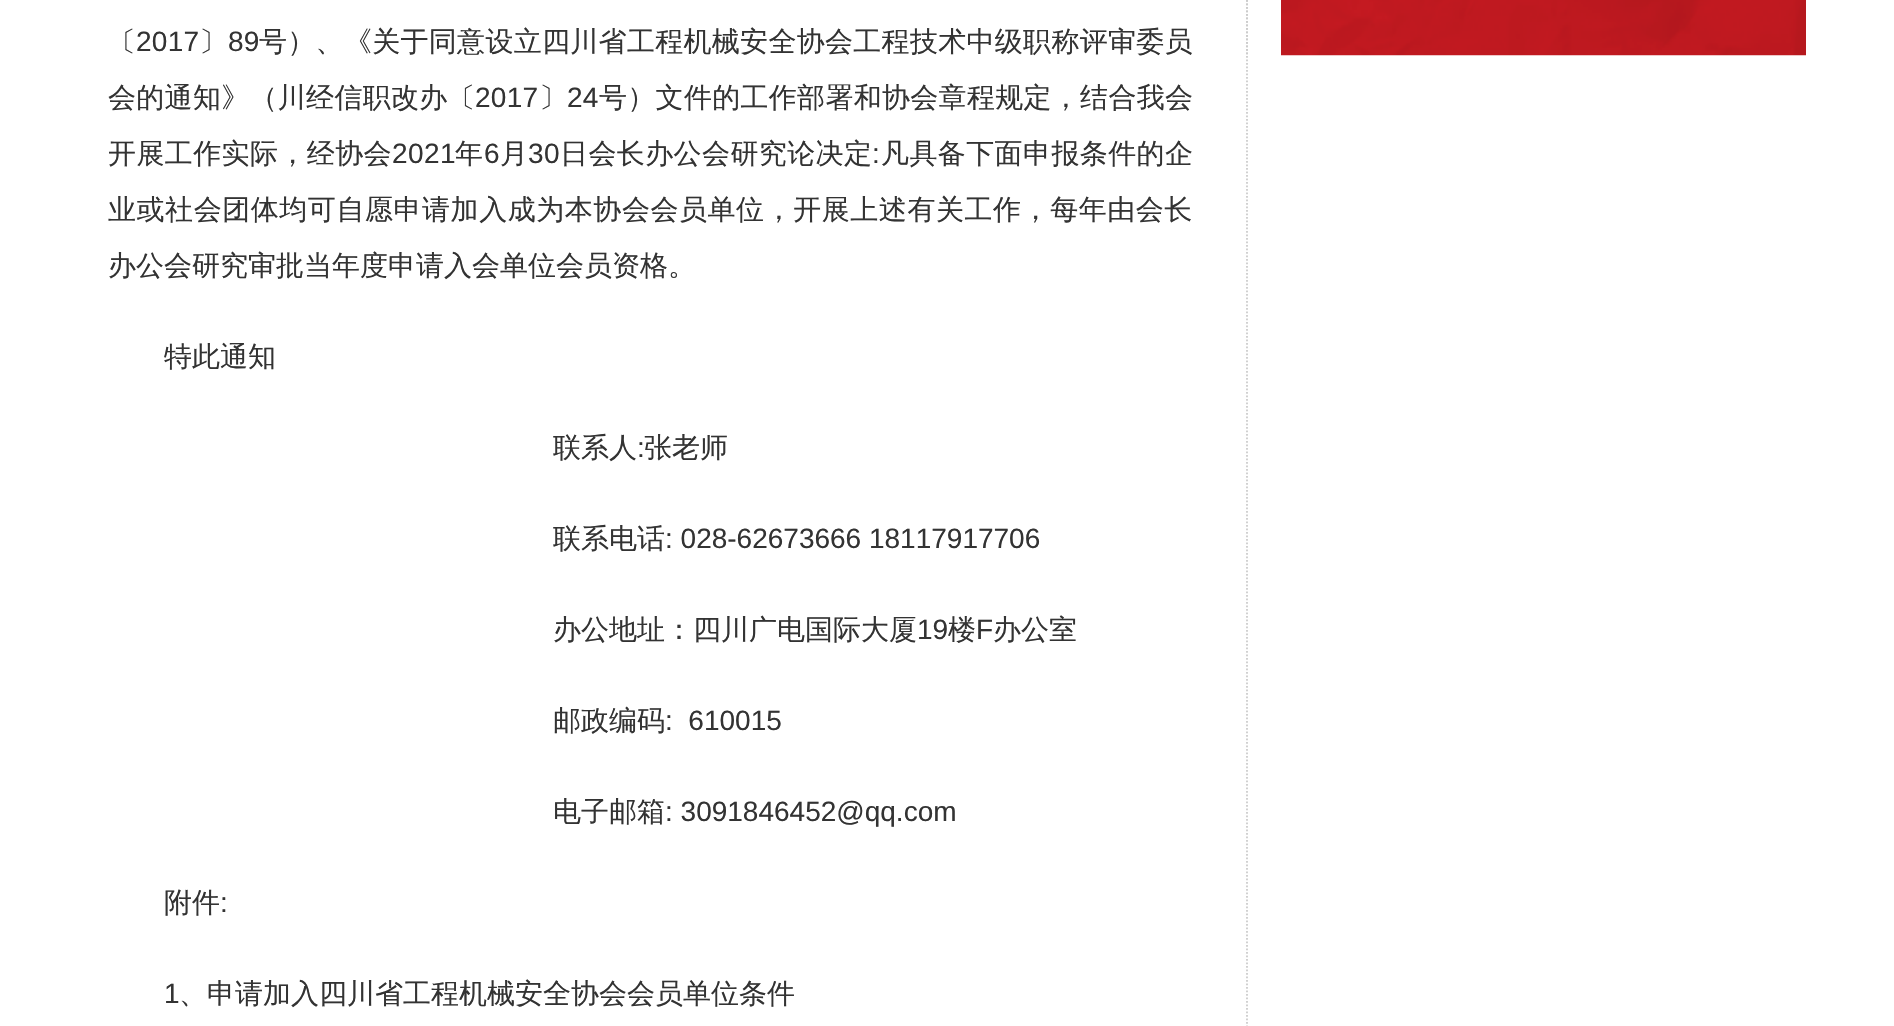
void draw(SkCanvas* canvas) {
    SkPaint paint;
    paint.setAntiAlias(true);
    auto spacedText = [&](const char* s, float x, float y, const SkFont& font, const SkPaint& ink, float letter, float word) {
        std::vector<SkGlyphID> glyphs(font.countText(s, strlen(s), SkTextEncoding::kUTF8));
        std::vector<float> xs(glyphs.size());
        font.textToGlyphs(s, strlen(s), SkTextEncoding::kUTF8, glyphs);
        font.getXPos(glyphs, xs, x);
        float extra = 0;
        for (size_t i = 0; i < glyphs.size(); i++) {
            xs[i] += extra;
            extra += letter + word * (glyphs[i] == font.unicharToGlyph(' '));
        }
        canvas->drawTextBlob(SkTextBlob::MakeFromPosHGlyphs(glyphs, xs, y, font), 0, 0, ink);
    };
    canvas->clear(0xFFFFFFFF);
    paint.setStyle(SkPaint::kStroke_Style);
    paint.setStrokeWidth(1.8f);
    paint.setColor(0xFFCCCCCC);
    paint.setPathEffect(SkDashPathEffect::Make({{1.75f, 1.75f}}, 0));
    canvas->drawPath(SkPathBuilder().moveTo(1247, -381.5f).lineTo(1247, 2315).detach(), paint);
    paint.setPathEffect(nullptr);
    SkFont font1(fontMgr->matchFamilyStyle("WenQuanYi Zen Hei", SkFontStyle(500, SkFontStyle::kNormal_Width, SkFontStyle::kUpright_Slant)), 28);
    font1.setSubpixel(true);
    paint.setStyle(SkPaint::kFill_Style);
    paint.setColor(0xFF333333);
    spacedText("〔", 108, 51, font1, paint, 0.3f, 0);
    SkFont font2(fontMgr->matchFamilyStyle("Liberation Sans", SkFontStyle::Normal()), 28);
    font2.setSubpixel(true);
    spacedText("2017", 136, 51, font2, paint, 0.3f, 0);
    spacedText("〕", 199, 51, font1, paint, 0.3f, 0);
    spacedText("89", 228, 51, font2, paint, 0.3f, 0);
    spacedText("号）、《关于同意设立四川省工程机械安全协会工程技术中级职称评审委员", 259, 51, font1, paint, 0.3f, 0);
    spacedText("会的通知》（川经信职改办〔", 108, 107, font1, paint, 0.3f, 0);
    spacedText("2017", 475, 107, font2, paint, 0.3f, 0);
    spacedText("〕", 539, 107, font1, paint, 0.3f, 0);
    spacedText("24", 567, 107, font2, paint, 0.3f, 0);
    spacedText("号）文件的工作部署和协会章程规定，结合我会", 599, 107, font1, paint, 0.3f, 0);
    spacedText("开展工作实际，经协会", 108, 163, font1, paint, 0.4f, 0);
    spacedText("2021", 392, 163, font2, paint, 0.4f, 0);
    spacedText("年", 455, 163, font1, paint, 0.4f, 0);
    spacedText("6", 484, 163, font2, paint, 0.4f, 0);
    spacedText("月", 500, 163, font1, paint, 0.4f, 0);
    spacedText("30", 528, 163, font2, paint, 0.4f, 0);
    spacedText("日会长办公会研究论决定", 560, 163, font1, paint, 0.4f, 0);
    spacedText(":", 872, 163, font2, paint, 0.4f, 0);
    spacedText("凡具备下面申报条件的企", 881, 163, font1, paint, 0.4f, 0);
    spacedText("业或社会团体均可自愿申请加入成为本协会会员单位，开展上述有关工作，每年由会长", 108, 219, font1, paint, 0.55f, 0);
    canvas->drawString("办公会研究审批当年度申请入会单位会员资格。", 108, 275, font1, paint);
    canvas->drawString("特此通知", 164, 366, font1, paint);
    canvas->drawString("联系人", 553, 457, font1, paint);
    canvas->drawString(":", 637, 457, font2, paint);
    canvas->drawString("张老师", 644, 457, font1, paint);
    canvas->drawString("联系电话", 553, 548, font1, paint);
    canvas->drawString(": 028-62673666 18117917706", 665, 548, font2, paint);
    canvas->drawString("办公地址：四川广电国际大厦", 553, 639, font1, paint);
    canvas->drawString("19", 917, 639, font2, paint);
    canvas->drawString("楼", 948, 639, font1, paint);
    canvas->drawString("F", 976, 639, font2, paint);
    canvas->drawString("办公室", 993, 639, font1, paint);
    canvas->drawString("邮政编码", 553, 730, font1, paint);
    canvas->drawString(":  610015", 665, 730, font2, paint);
    canvas->drawString("电子邮箱", 553, 821, font1, paint);
    canvas->drawString(": 3091846452@qq.com", 665, 821, font2, paint);
    canvas->drawString("附件", 164, 912, font1, paint);
    canvas->drawString(":", 220, 912, font2, paint);
    canvas->drawString("1", 164, 1003, font2, paint);
    canvas->drawString("、申请加入四川省工程机械安全协会会员单位条件", 179, 1003, font1, paint);
    paint.setStyle(SkPaint::kStroke_Style);
    paint.setColor(0xFFCCCCCC);
    paint.setPathEffect(SkDashPathEffect::Make({{1.75f, 1.75f}}, 0));
    canvas->drawPath(SkPathBuilder().moveTo(1247, -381.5f).lineTo(1247, 56).detach(), paint);
    paint.setPathEffect(nullptr);
    canvas->drawImageRect(SkImages::DeferredFromEncodedData(SkData::MakeFromFileName("img1.png")), SkRect::MakeXYWH(1281, 0, 525, 56), SkSamplingOptions());
}
